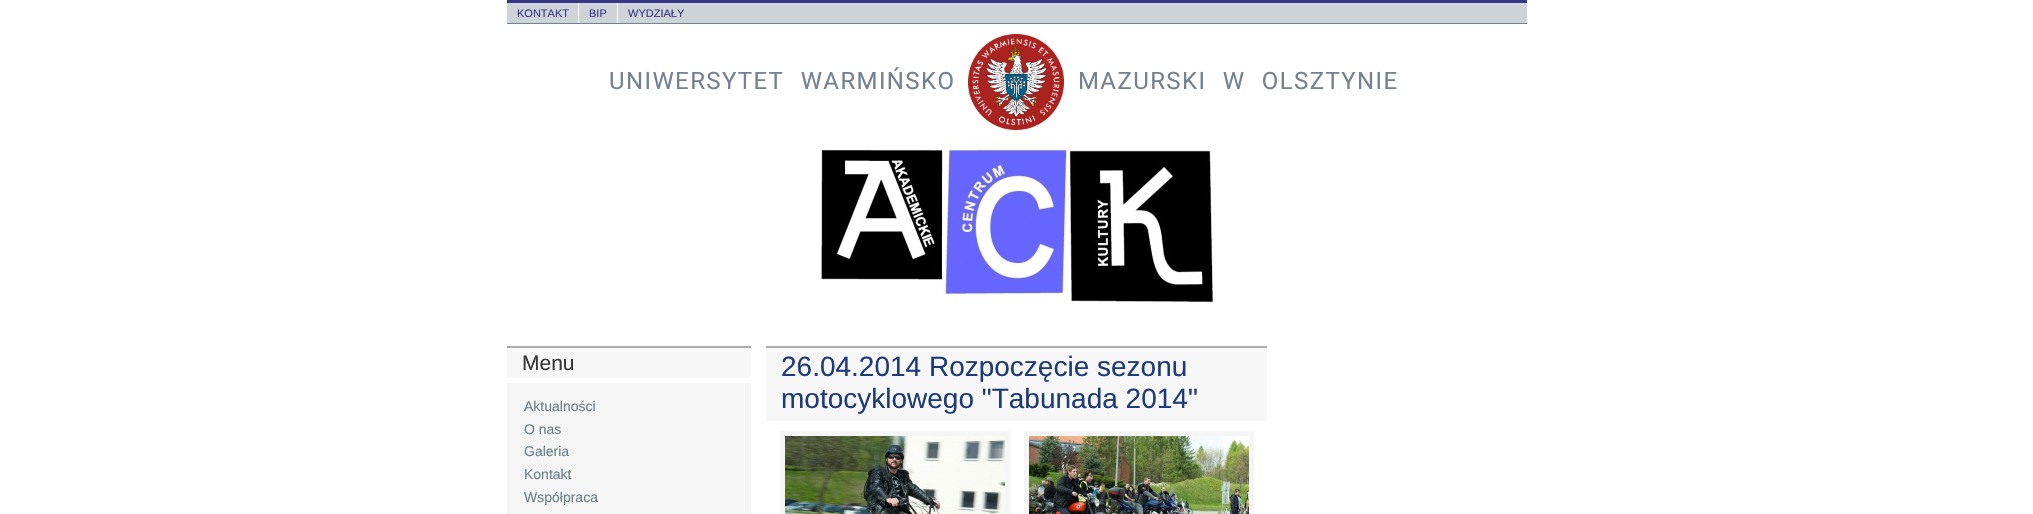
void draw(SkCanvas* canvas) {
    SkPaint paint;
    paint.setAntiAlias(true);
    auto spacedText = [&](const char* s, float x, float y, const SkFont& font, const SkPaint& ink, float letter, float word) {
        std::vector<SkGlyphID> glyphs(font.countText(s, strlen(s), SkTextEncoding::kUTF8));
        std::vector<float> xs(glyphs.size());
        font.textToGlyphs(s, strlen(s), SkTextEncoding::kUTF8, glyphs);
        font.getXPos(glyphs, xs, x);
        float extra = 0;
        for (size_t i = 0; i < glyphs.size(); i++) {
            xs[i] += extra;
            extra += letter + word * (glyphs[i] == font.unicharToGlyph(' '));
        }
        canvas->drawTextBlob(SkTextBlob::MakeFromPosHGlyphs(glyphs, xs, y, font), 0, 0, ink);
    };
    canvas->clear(0xFFFFFFFF);
    paint.setColor(0xFFCED3D8);
    canvas->drawRect(SkRect::MakeXYWH(507, 3, 1020, 20), paint);
    paint.setColor(0xFF353889);
    canvas->drawRect(SkRect::MakeXYWH(507, 0, 1020, 3), paint);
    paint.setColor(0xFF728293);
    canvas->drawRect(SkRect::MakeXYWH(507, 23, 1020, 1), paint);
    SkFont font1(fontMgr->matchFamilyStyle("Liberation Sans", SkFontStyle::Normal()), 11);
    font1.setSubpixel(true);
    paint.setColor(0xFF353889);
    canvas->drawString("KONTAKT", 517, 17, font1, paint);
    paint.setColor(0xFFFFFFFF);
    canvas->drawRect(SkRect::MakeXYWH(578, 3, 1, 20), paint);
    paint.setColor(0xFF353889);
    canvas->drawString("BIP", 589, 17, font1, paint);
    paint.setColor(0xFFFFFFFF);
    canvas->drawRect(SkRect::MakeXYWH(617, 3, 1, 20), paint);
    paint.setColor(0xFF353889);
    canvas->drawString("WYDZIAŁY", 628, 17, font1, paint);
    SkFont font2(fontMgr->matchFamilyStyle("Roboto", SkFontStyle::Normal()), 24);
    font2.setSubpixel(true);
    paint.setColor(0xFF728293);
    spacedText("UNIWERSYTET WARMIŃSKO", 609, 89, font2, paint, 1.4f, 9);
    canvas->drawImageRect(SkImages::DeferredFromEncodedData(SkData::MakeFromFileName("img1.png")), SkRect::MakeXYWH(968, 34, 96, 96), SkSamplingOptions());
    spacedText("MAZURSKI W OLSZTYNIE", 1078, 89, font2, paint, 1.4f, 9);
    canvas->drawImageRect(SkImages::DeferredFromEncodedData(SkData::MakeFromFileName("img2.png")), SkRect::MakeXYWH(821, 136, 396, 168), SkSamplingOptions());
    paint.setColor(0xFFF7F7F7);
    canvas->drawRect(SkRect::MakeXYWH(507, 348, 244, 30), paint);
    paint.setColor(0xFFACACAC);
    canvas->drawRect(SkRect::MakeXYWH(507, 346, 244, 2), paint);
    SkFont font3(fontMgr->matchFamilyStyle("Liberation Sans", SkFontStyle::Normal()), 21);
    font3.setSubpixel(true);
    paint.setColor(0xFF353535);
    canvas->drawString("Menu", 522, 370, font3, paint);
    paint.setColor(0xFFF5F5F5);
    canvas->drawRect(SkRect::MakeXYWH(507, 383, 244, 131), paint);
    SkFont font4(fontMgr->matchFamilyStyle("Liberation Sans", SkFontStyle::Normal()), 14);
    font4.setSubpixel(true);
    paint.setColor(0xFF68818D);
    canvas->drawString("Aktualności", 524, 411, font4, paint);
    canvas->drawString("O nas", 524, 434, font4, paint);
    canvas->drawString("Galeria", 524, 456, font4, paint);
    canvas->drawString("Kontakt", 524, 479, font4, paint);
    canvas->drawString("Współpraca", 524, 502, font4, paint);
    paint.setColor(0xFFF7F7F7);
    canvas->drawRect(SkRect::MakeXYWH(766, 348, 501, 73), paint);
    paint.setColor(0xFFACACAC);
    canvas->drawRect(SkRect::MakeXYWH(766, 346, 501, 2), paint);
    SkFont font5(fontMgr->matchFamilyStyle("Liberation Sans", SkFontStyle::Normal()), 28);
    font5.setSubpixel(true);
    paint.setColor(0xFF1E3A77);
    canvas->drawString("26.04.2014 Rozpoczęcie sezonu", 781, 376, font5, paint);
    canvas->drawString("motocyklowego \"Tabunada 2014\"", 781, 408, font5, paint);
    paint.setColor(0xFFF5F5F5);
    canvas->drawRect(SkRect::MakeXYWH(780, 431, 230, 83), paint);
    canvas->drawImageRect(SkImages::DeferredFromEncodedData(SkData::MakeFromFileName("img3.png")), SkRect::MakeXYWH(785, 436, 220, 78), SkSamplingOptions());
    canvas->drawRect(SkRect::MakeXYWH(1024, 431, 230, 83), paint);
    canvas->drawImageRect(SkImages::DeferredFromEncodedData(SkData::MakeFromFileName("img4.png")), SkRect::MakeXYWH(1029, 436, 220, 78), SkSamplingOptions());
}
